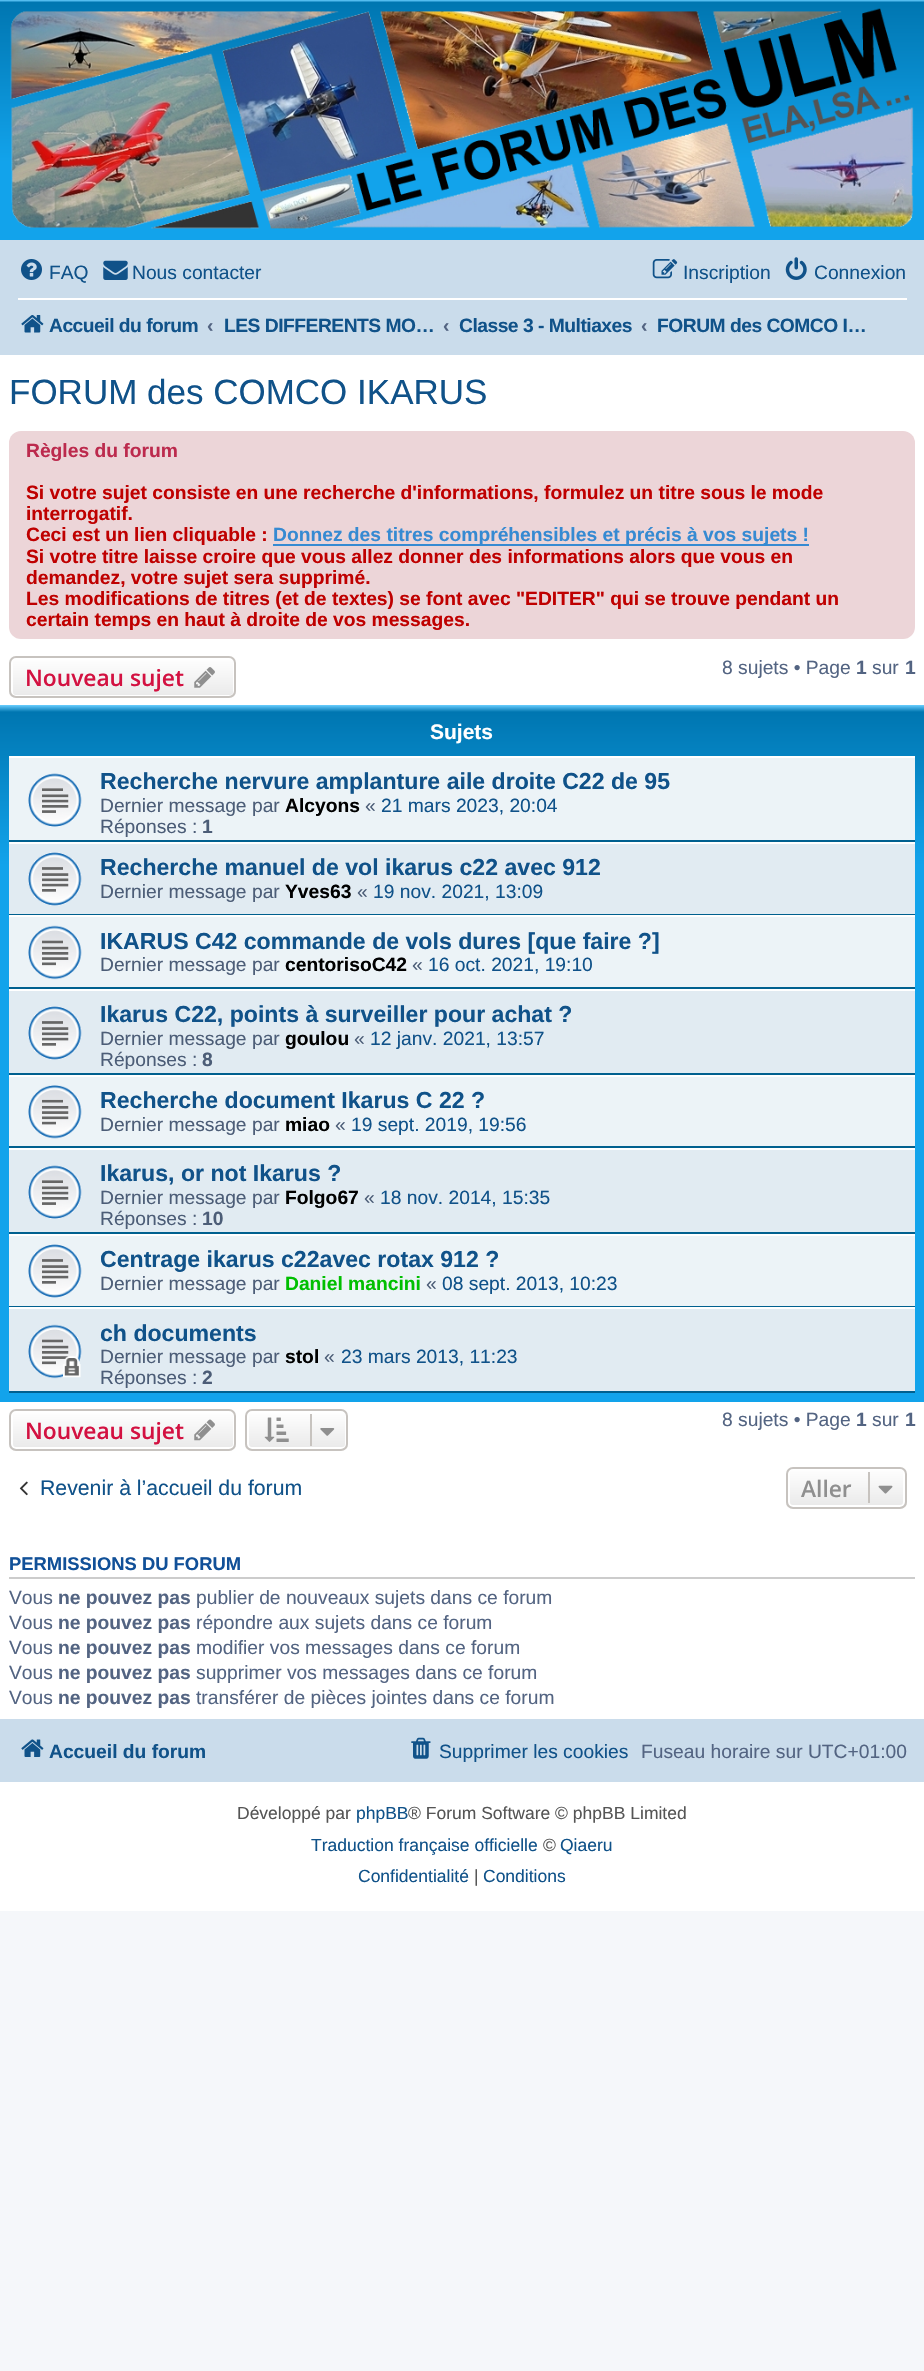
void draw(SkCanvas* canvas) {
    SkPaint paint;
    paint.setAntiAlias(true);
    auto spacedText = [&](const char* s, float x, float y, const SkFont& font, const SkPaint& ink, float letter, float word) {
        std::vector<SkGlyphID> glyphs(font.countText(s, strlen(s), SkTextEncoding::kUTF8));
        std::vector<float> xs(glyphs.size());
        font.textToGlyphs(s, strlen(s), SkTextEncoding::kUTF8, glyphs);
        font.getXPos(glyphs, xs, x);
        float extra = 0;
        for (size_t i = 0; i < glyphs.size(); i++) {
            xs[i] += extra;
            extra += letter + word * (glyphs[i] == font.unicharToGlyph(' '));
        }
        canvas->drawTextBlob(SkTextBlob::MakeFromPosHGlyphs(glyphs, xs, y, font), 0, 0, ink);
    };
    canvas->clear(0xFFF5F7FA);
    paint.setColor(0xFFFFFFFF);
    canvas->drawRect(SkRect::MakeXYWH(0, 355, 924, 1556), paint);
    {
        const SkColor colors[] = {0xFF6ACEFF, 0xFF0076B1, 0xFF12A3EB, 0xFF12A3EB};
        const float stops[] = {0, 0.01f, 0.67f, 1};
        const SkPoint ends[] = {{462, 0}, {462, 242}};
        paint.setShader(SkGradientShader::MakeLinear(ends, colors, stops, 4, SkTileMode::kClamp));
        paint.setAlpha(255);
    }
    canvas->drawRect(SkRect::MakeXYWH(0, 0, 924, 240), paint);
    canvas->drawImageRect(SkImages::DeferredFromEncodedData(SkData::MakeFromFileName("img1.png")), SkRect::MakeXYWH(10, 8, 904, 221), SkSamplingOptions());
    paint.setShader(nullptr);
    paint.setColor(0xFFCADCEB);
    canvas->drawRect(SkRect::MakeXYWH(0, 240, 924, 115), paint);
    canvas->drawImageRect(SkImages::DeferredFromEncodedData(SkData::MakeFromFileName("img2.png")), SkRect::MakeXYWH(21, 259, 21, 21), SkSamplingOptions());
    SkFont font1(fontMgr->matchFamilyStyle("Liberation Sans", SkFontStyle::Normal()), 19.25f);
    font1.setSubpixel(true);
    paint.setColor(0xFF105289);
    canvas->drawString("FAQ", 49, 279, font1, paint);
    canvas->drawImageRect(SkImages::DeferredFromEncodedData(SkData::MakeFromFileName("img3.png")), SkRect::MakeXYWH(103, 260, 25, 20), SkSamplingOptions());
    canvas->drawString("Nous contacter", 132, 279, font1, paint);
    canvas->drawImageRect(SkImages::DeferredFromEncodedData(SkData::MakeFromFileName("img4.png")), SkRect::MakeXYWH(652, 259, 26, 20), SkSamplingOptions());
    canvas->drawString("Inscription", 683, 279, font1, paint);
    canvas->drawImageRect(SkImages::DeferredFromEncodedData(SkData::MakeFromFileName("img5.png")), SkRect::MakeXYWH(785, 257, 22, 23), SkSamplingOptions());
    canvas->drawString("Connexion", 814, 279, font1, paint);
    paint.setColor(0xFFFFFFFF);
    canvas->drawRect(SkRect::MakeXYWH(18, 298, 889, 2), paint);
    canvas->drawImageRect(SkImages::DeferredFromEncodedData(SkData::MakeFromFileName("img6.png")), SkRect::MakeXYWH(21, 315, 23, 18), SkSamplingOptions());
    SkFont font2(fontMgr->matchFamilyStyle("Liberation Sans", SkFontStyle::Bold()), 19.25f);
    font2.setSubpixel(true);
    paint.setColor(0xFF105289);
    spacedText("Accueil du forum", 49, 332, font2, paint, -0.5f, 0);
    paint.setColor(0xFF536482);
    canvas->drawString("‹", 207, 332, font2, paint);
    paint.setColor(0xFF105289);
    spacedText("LES DIFFERENTS MO…", 224, 332, font2, paint, -0.5f, 0);
    paint.setColor(0xFF536482);
    canvas->drawString("‹", 443, 332, font2, paint);
    paint.setColor(0xFF105289);
    spacedText("Classe 3 - Multiaxes", 459, 332, font2, paint, -0.5f, 0);
    paint.setColor(0xFF536482);
    canvas->drawString("‹", 641, 332, font2, paint);
    paint.setColor(0xFF105289);
    spacedText("FORUM des COMCO I…", 657, 332, font2, paint, -0.5f, 0);
    SkFont font3(fontMgr->matchFamilyStyle("Liberation Sans", SkFontStyle::Normal()), 35);
    font3.setSubpixel(true);
    canvas->drawString("FORUM des COMCO IKARUS", 9, 404, font3, paint);
    paint.setColor(0xFFECD5D8);
    canvas->drawRoundRect(SkRect::MakeXYWH(9, 431, 906, 208), 12, 12, paint);
    paint.setColor(0xFFBC2A4D);
    canvas->drawString("Règles du forum", 26, 457, font2, paint);
    paint.setColor(0xFFBF0000);
    canvas->drawString("Si votre sujet consiste en une recherche d'informations, formulez un titre sous le mode", 26, 499, font2, paint);
    canvas->drawString("interrogatif.", 26, 520, font2, paint);
    canvas->drawString("Ceci est un lien cliquable :", 26, 541, font2, paint);
    paint.setColor(0xFF368AD2);
    canvas->drawRect(SkRect::MakeXYWH(273, 544, 536, 2), paint);
    canvas->drawString("Donnez des titres compréhensibles et précis à vos sujets !", 273, 541, font2, paint);
    paint.setColor(0xFFBF0000);
    canvas->drawString("Si votre titre laisse croire que vous allez donner des informations alors que vous en", 26, 563, font2, paint);
    canvas->drawString("demandez, votre sujet sera supprimé.", 26, 584, font2, paint);
    canvas->drawString("Les modifications de titres (et de textes) se font avec \"EDITER\" qui se trouve pendant un", 26, 605, font2, paint);
    canvas->drawString("certain temps en haut à droite de vos messages.", 26, 626, font2, paint);
    canvas->save();
    canvas->clipPath(SkPathBuilder().moveTo(16, 656).lineTo(229, 656).cubicTo(233, 656, 236, 659, 236, 663).lineTo(236, 691).cubicTo(236, 695, 233, 698, 229, 698).lineTo(16, 698).cubicTo(12, 698, 9, 695, 9, 691).lineTo(9, 663).cubicTo(9, 659, 12, 656, 16, 656).close().detach(), true);
    {
        const SkColor colors[] = {0xFFFFFFFF, 0xFFE9E9E9};
        const float stops[] = {0, 1};
        const SkPoint ends[] = {{123, 658}, {123, 697}};
        paint.setShader(SkGradientShader::MakeLinear(ends, colors, stops, 2, SkTileMode::kClamp));
        paint.setAlpha(255);
    }
    canvas->drawRect(SkRect::MakeXYWH(9, 658, 227, 39), paint);
    canvas->restore();
    paint.setStyle(SkPaint::kStroke_Style);
    paint.setStrokeWidth(2);
    paint.setShader(nullptr);
    paint.setColor(0xFFFFFFFF);
    canvas->drawRoundRect(SkRect::MakeXYWH(12, 659, 222, 37), 4, 4, paint);
    paint.setColor(0xFFC7C3BF);
    canvas->drawRoundRect(SkRect::MakeXYWH(10, 657, 225, 40), 6, 6, paint);
    SkFont font4(fontMgr->matchFamilyStyle("Open Sans", SkFontStyle(600, SkFontStyle::kNormal_Width, SkFontStyle::kUpright_Slant)), 22.75f);
    font4.setSubpixel(true);
    paint.setStyle(SkPaint::kFill_Style);
    paint.setColor(0xFFD31141);
    canvas->drawString("Nouveau sujet", 25, 686, font4, paint);
    canvas->drawImageRect(SkImages::DeferredFromEncodedData(SkData::MakeFromFileName("img7.png")), SkRect::MakeXYWH(194, 667, 21, 21), SkSamplingOptions());
    paint.setColor(0xFF536482);
    canvas->drawString("8 sujets • Page", 722, 674, font1, paint);
    canvas->drawString("1", 856, 674, font2, paint);
    canvas->drawString("sur", 872, 674, font1, paint);
    canvas->drawString("1", 905, 674, font2, paint);
    {
        const SkColor colors[] = {0xFF6ACEFF, 0xFF0076B1, 0xFF12A3EB, 0xFF12A3EB};
        const float stops[] = {0, 0.01f, 0.23f, 1};
        const SkPoint ends[] = {{462, 705}, {462, 1402}};
        paint.setShader(SkGradientShader::MakeLinear(ends, colors, stops, 4, SkTileMode::kClamp));
        paint.setAlpha(255);
    }
    canvas->drawRect(SkRect::MakeXYWH(0, 705, 924, 697), paint);
    SkFont font5(fontMgr->matchFamilyStyle("Liberation Sans", SkFontStyle::Bold()), 21);
    font5.setSubpixel(true);
    paint.setShader(nullptr);
    paint.setColor(0xFFFFFFFF);
    canvas->drawString("Sujets", 430, 739, font5, paint);
    paint.setColor(0xFFECF3F7);
    canvas->drawRect(SkRect::MakeXYWH(9, 758, 906, 82), paint);
    paint.setColor(0xFFFFFFFF);
    canvas->drawRect(SkRect::MakeXYWH(9, 756, 906, 2), paint);
    paint.setColor(0xFF00608F);
    canvas->drawRect(SkRect::MakeXYWH(9, 840, 906, 2), paint);
    canvas->drawImageRect(SkImages::DeferredFromEncodedData(SkData::MakeFromFileName("img8.png")), SkRect::MakeXYWH(28, 773, 54, 54), SkSamplingOptions());
    SkFont font6(fontMgr->matchFamilyStyle("Liberation Sans", SkFontStyle::Bold()), 23.1f);
    font6.setSubpixel(true);
    paint.setColor(0xFF105289);
    canvas->drawString("Recherche nervure amplanture aile droite C22 de 95", 100, 789, font6, paint);
    paint.setColor(0xFF4C5D77);
    canvas->drawString("Dernier message par", 100, 812, font1, paint);
    paint.setColor(0xFF000000);
    canvas->drawString("Alcyons", 285, 812, font2, paint);
    paint.setColor(0xFF4C5D77);
    canvas->drawString("«", 365, 812, font1, paint);
    paint.setColor(0xFF105289);
    canvas->drawString("21 mars 2023, 20:04", 381, 812, font1, paint);
    paint.setColor(0xFF4C5D77);
    canvas->drawString("Réponses :", 100, 833, font1, paint);
    canvas->drawString("1", 202, 833, font2, paint);
    paint.setColor(0xFFE1EBF2);
    canvas->drawRect(SkRect::MakeXYWH(9, 844, 906, 70), paint);
    paint.setColor(0xFFFFFFFF);
    canvas->drawRect(SkRect::MakeXYWH(9, 842, 906, 2), paint);
    paint.setColor(0xFF00608F);
    canvas->drawRect(SkRect::MakeXYWH(9, 914, 906, 1), paint);
    canvas->drawImageRect(SkImages::DeferredFromEncodedData(SkData::MakeFromFileName("img9.png")), SkRect::MakeXYWH(28, 852, 54, 54), SkSamplingOptions());
    paint.setColor(0xFF105289);
    canvas->drawString("Recherche manuel de vol ikarus c22 avec 912", 100, 875, font6, paint);
    paint.setColor(0xFF4C5D77);
    canvas->drawString("Dernier message par", 100, 898, font1, paint);
    paint.setColor(0xFF000000);
    canvas->drawString("Yves63", 285, 898, font2, paint);
    paint.setColor(0xFF4C5D77);
    canvas->drawString("«", 357, 898, font1, paint);
    paint.setColor(0xFF105289);
    canvas->drawString("19 nov. 2021, 13:09", 373, 898, font1, paint);
    paint.setColor(0xFFECF3F7);
    canvas->drawRect(SkRect::MakeXYWH(9, 917, 906, 70), paint);
    paint.setColor(0xFFFFFFFF);
    canvas->drawRect(SkRect::MakeXYWH(9, 915, 906, 2), paint);
    paint.setColor(0xFF00608F);
    canvas->drawRect(SkRect::MakeXYWH(9, 987, 906, 2), paint);
    canvas->drawImageRect(SkImages::DeferredFromEncodedData(SkData::MakeFromFileName("img10.png")), SkRect::MakeXYWH(28, 925, 54, 55), SkSamplingOptions());
    paint.setColor(0xFF105289);
    canvas->drawString("IKARUS C42 commande de vols dures [que faire ?]", 100, 949, font6, paint);
    paint.setColor(0xFF4C5D77);
    canvas->drawString("Dernier message par", 100, 971, font1, paint);
    paint.setColor(0xFF000000);
    canvas->drawString("centorisoC42", 285, 971, font2, paint);
    paint.setColor(0xFF4C5D77);
    canvas->drawString("«", 412, 971, font1, paint);
    paint.setColor(0xFF105289);
    canvas->drawString("16 oct. 2021, 19:10", 428, 971, font1, paint);
    paint.setColor(0xFFE1EBF2);
    canvas->drawRect(SkRect::MakeXYWH(9, 991, 906, 82), paint);
    paint.setColor(0xFFFFFFFF);
    canvas->drawRect(SkRect::MakeXYWH(9, 989, 906, 2), paint);
    paint.setColor(0xFF00608F);
    canvas->drawRect(SkRect::MakeXYWH(9, 1073, 906, 2), paint);
    canvas->drawImageRect(SkImages::DeferredFromEncodedData(SkData::MakeFromFileName("img9.png")), SkRect::MakeXYWH(28, 1006, 54, 54), SkSamplingOptions());
    paint.setColor(0xFF105289);
    canvas->drawString("Ikarus C22, points à surveiller pour achat ?", 100, 1022, font6, paint);
    paint.setColor(0xFF4C5D77);
    canvas->drawString("Dernier message par", 100, 1045, font1, paint);
    paint.setColor(0xFF000000);
    canvas->drawString("goulou", 285, 1045, font2, paint);
    paint.setColor(0xFF4C5D77);
    canvas->drawString("«", 354, 1045, font1, paint);
    paint.setColor(0xFF105289);
    canvas->drawString("12 janv. 2021, 13:57", 370, 1045, font1, paint);
    canvas->save();
    canvas->clipRect(SkRect::MakeXYWH(9, 994, 906, 75));
    paint.setColor(0xFF4C5D77);
    canvas->drawString("Réponses :", 100, 1066, font1, paint);
    canvas->restore();
    canvas->drawString("8", 202, 1066, font2, paint);
    paint.setColor(0xFFECF3F7);
    canvas->drawRect(SkRect::MakeXYWH(9, 1077, 906, 69), paint);
    paint.setColor(0xFFFFFFFF);
    canvas->drawRect(SkRect::MakeXYWH(9, 1075, 906, 2), paint);
    paint.setColor(0xFF00608F);
    canvas->drawRect(SkRect::MakeXYWH(9, 1146, 906, 2), paint);
    canvas->drawImageRect(SkImages::DeferredFromEncodedData(SkData::MakeFromFileName("img11.png")), SkRect::MakeXYWH(28, 1085, 54, 54), SkSamplingOptions());
    paint.setColor(0xFF105289);
    canvas->drawString("Recherche document Ikarus C 22 ?", 100, 1108, font6, paint);
    paint.setColor(0xFF4C5D77);
    canvas->drawString("Dernier message par", 100, 1131, font1, paint);
    paint.setColor(0xFF000000);
    canvas->drawString("miao", 285, 1131, font2, paint);
    paint.setColor(0xFF4C5D77);
    canvas->drawString("«", 335, 1131, font1, paint);
    paint.setColor(0xFF105289);
    canvas->drawString("19 sept. 2019, 19:56", 351, 1131, font1, paint);
    paint.setColor(0xFFE1EBF2);
    canvas->drawRect(SkRect::MakeXYWH(9, 1150, 906, 82), paint);
    paint.setColor(0xFFFFFFFF);
    canvas->drawRect(SkRect::MakeXYWH(9, 1148, 906, 2), paint);
    paint.setColor(0xFF00608F);
    canvas->drawRect(SkRect::MakeXYWH(9, 1232, 906, 2), paint);
    canvas->drawImageRect(SkImages::DeferredFromEncodedData(SkData::MakeFromFileName("img12.png")), SkRect::MakeXYWH(28, 1165, 54, 54), SkSamplingOptions());
    paint.setColor(0xFF105289);
    canvas->drawString("Ikarus, or not Ikarus ?", 100, 1181, font6, paint);
    paint.setColor(0xFF4C5D77);
    canvas->drawString("Dernier message par", 100, 1204, font1, paint);
    paint.setColor(0xFF000000);
    canvas->drawString("Folgo67", 285, 1204, font2, paint);
    paint.setColor(0xFF4C5D77);
    canvas->drawString("«", 364, 1204, font1, paint);
    paint.setColor(0xFF105289);
    canvas->drawString("18 nov. 2014, 15:35", 380, 1204, font1, paint);
    paint.setColor(0xFF4C5D77);
    canvas->drawString("Réponses :", 100, 1225, font1, paint);
    canvas->drawString("10", 202, 1225, font2, paint);
    paint.setColor(0xFFECF3F7);
    canvas->drawRect(SkRect::MakeXYWH(9, 1236, 906, 70), paint);
    paint.setColor(0xFFFFFFFF);
    canvas->drawRect(SkRect::MakeXYWH(9, 1234, 906, 2), paint);
    paint.setColor(0xFF00608F);
    canvas->drawRect(SkRect::MakeXYWH(9, 1306, 906, 1), paint);
    canvas->drawImageRect(SkImages::DeferredFromEncodedData(SkData::MakeFromFileName("img13.png")), SkRect::MakeXYWH(28, 1244, 54, 54), SkSamplingOptions());
    paint.setColor(0xFF105289);
    canvas->drawString("Centrage ikarus c22avec rotax 912 ?", 100, 1267, font6, paint);
    paint.setColor(0xFF4C5D77);
    canvas->drawString("Dernier message par", 100, 1290, font1, paint);
    paint.setColor(0xFF00BF00);
    canvas->drawString("Daniel mancini", 285, 1290, font2, paint);
    paint.setColor(0xFF4C5D77);
    canvas->drawString("«", 426, 1290, font1, paint);
    paint.setColor(0xFF105289);
    canvas->drawString("08 sept. 2013, 10:23", 442, 1290, font1, paint);
    paint.setColor(0xFFE1EBF2);
    canvas->drawRect(SkRect::MakeXYWH(9, 1309, 906, 82), paint);
    paint.setColor(0xFFFFFFFF);
    canvas->drawRect(SkRect::MakeXYWH(9, 1307, 906, 2), paint);
    paint.setColor(0xFF00608F);
    canvas->drawRect(SkRect::MakeXYWH(9, 1391, 906, 2), paint);
    canvas->drawImageRect(SkImages::DeferredFromEncodedData(SkData::MakeFromFileName("img14.png")), SkRect::MakeXYWH(28, 1324, 54, 55), SkSamplingOptions());
    paint.setColor(0xFF105289);
    canvas->drawString("ch documents", 100, 1341, font6, paint);
    paint.setColor(0xFF4C5D77);
    canvas->drawString("Dernier message par", 100, 1363, font1, paint);
    paint.setColor(0xFF000000);
    canvas->drawString("stol", 285, 1363, font2, paint);
    paint.setColor(0xFF4C5D77);
    canvas->drawString("«", 324, 1363, font1, paint);
    paint.setColor(0xFF105289);
    canvas->drawString("23 mars 2013, 11:23", 341, 1363, font1, paint);
    paint.setColor(0xFF4C5D77);
    canvas->drawString("Réponses :", 100, 1384, font1, paint);
    canvas->drawString("2", 202, 1384, font2, paint);
    canvas->save();
    canvas->clipPath(SkPathBuilder().moveTo(16, 1409).lineTo(229, 1409).cubicTo(233, 1409, 236, 1412, 236, 1416).lineTo(236, 1444).cubicTo(236, 1448, 233, 1451, 229, 1451).lineTo(16, 1451).cubicTo(12, 1451, 9, 1448, 9, 1444).lineTo(9, 1416).cubicTo(9, 1412, 12, 1409, 16, 1409).close().detach(), true);
    {
        const SkColor colors[] = {0xFFFFFFFF, 0xFFE9E9E9};
        const float stops[] = {0, 1};
        const SkPoint ends[] = {{123, 1411}, {123, 1449}};
        paint.setShader(SkGradientShader::MakeLinear(ends, colors, stops, 2, SkTileMode::kClamp));
        paint.setAlpha(255);
    }
    canvas->drawRect(SkRect::MakeXYWH(9, 1411, 227, 38), paint);
    canvas->restore();
    paint.setStyle(SkPaint::kStroke_Style);
    paint.setShader(nullptr);
    paint.setColor(0xFFFFFFFF);
    canvas->drawRoundRect(SkRect::MakeXYWH(12, 1412, 222, 36), 4, 4, paint);
    paint.setColor(0xFFC7C3BF);
    canvas->drawRoundRect(SkRect::MakeXYWH(10, 1410, 225, 40), 6, 6, paint);
    paint.setStyle(SkPaint::kFill_Style);
    paint.setColor(0xFFD31141);
    canvas->drawString("Nouveau sujet", 25, 1439, font4, paint);
    canvas->drawImageRect(SkImages::DeferredFromEncodedData(SkData::MakeFromFileName("img15.png")), SkRect::MakeXYWH(194, 1419, 21, 22), SkSamplingOptions());
    canvas->save();
    canvas->clipPath(SkPathBuilder().moveTo(252, 1409).lineTo(341, 1409).cubicTo(345, 1409, 348, 1412, 348, 1416).lineTo(348, 1444).cubicTo(348, 1448, 345, 1451, 341, 1451).lineTo(252, 1451).cubicTo(248, 1451, 245, 1448, 245, 1444).lineTo(245, 1416).cubicTo(245, 1412, 248, 1409, 252, 1409).close().detach(), true);
    {
        const SkColor colors[] = {0xFFFFFFFF, 0xFFE9E9E9};
        const float stops[] = {0, 1};
        const SkPoint ends[] = {{297, 1411}, {297, 1449}};
        paint.setShader(SkGradientShader::MakeLinear(ends, colors, stops, 2, SkTileMode::kClamp));
        paint.setAlpha(255);
    }
    canvas->drawRect(SkRect::MakeXYWH(245, 1411, 103, 38), paint);
    canvas->restore();
    paint.setStyle(SkPaint::kStroke_Style);
    paint.setShader(nullptr);
    paint.setColor(0xFFFFFFFF);
    canvas->drawRoundRect(SkRect::MakeXYWH(248, 1412, 98, 36), 4, 4, paint);
    paint.setColor(0xFFC7C3BF);
    canvas->drawRoundRect(SkRect::MakeXYWH(246, 1410, 101, 40), 6, 6, paint);
    canvas->drawImageRect(SkImages::DeferredFromEncodedData(SkData::MakeFromFileName("img16.png")), SkRect::MakeXYWH(264, 1417, 25, 25), SkSamplingOptions());
    paint.setStyle(SkPaint::kFill_Style);
    canvas->drawRect(SkRect::MakeXYWH(310, 1414, 2, 32), paint);
    canvas->drawImageRect(SkImages::DeferredFromEncodedData(SkData::MakeFromFileName("img17.png")), SkRect::MakeXYWH(320, 1428, 15, 8), SkSamplingOptions());
    paint.setColor(0xFF536482);
    canvas->drawString("8 sujets • Page", 722, 1426, font1, paint);
    canvas->drawString("1", 856, 1426, font2, paint);
    canvas->drawString("sur", 872, 1426, font1, paint);
    canvas->drawString("1", 905, 1426, font2, paint);
    canvas->drawImageRect(SkImages::DeferredFromEncodedData(SkData::MakeFromFileName("img18.png")), SkRect::MakeXYWH(19, 1481, 9, 15), SkSamplingOptions());
    SkFont font7(fontMgr->matchFamilyStyle("Liberation Sans", SkFontStyle::Normal()), 21.25f);
    font7.setSubpixel(true);
    paint.setColor(0xFF105289);
    canvas->drawString("Revenir à l’accueil du forum", 40, 1495, font7, paint);
    canvas->save();
    canvas->clipPath(SkPathBuilder().moveTo(793, 1467).lineTo(900, 1467).cubicTo(904, 1467, 907, 1470, 907, 1474).lineTo(907, 1502).cubicTo(907, 1506, 904, 1509, 900, 1509).lineTo(793, 1509).cubicTo(789, 1509, 786, 1506, 786, 1502).lineTo(786, 1474).cubicTo(786, 1470, 789, 1467, 793, 1467).close().detach(), true);
    {
        const SkColor colors[] = {0xFFFFFFFF, 0xFFE9E9E9};
        const float stops[] = {0, 1};
        const SkPoint ends[] = {{846, 1468}, {846, 1507}};
        paint.setShader(SkGradientShader::MakeLinear(ends, colors, stops, 2, SkTileMode::kClamp));
        paint.setAlpha(255);
    }
    canvas->drawRect(SkRect::MakeXYWH(786, 1468, 121, 39), paint);
    canvas->restore();
    paint.setStyle(SkPaint::kStroke_Style);
    paint.setShader(nullptr);
    paint.setColor(0xFFFFFFFF);
    canvas->drawRoundRect(SkRect::MakeXYWH(789, 1469, 115, 37), 4, 4, paint);
    paint.setColor(0xFFC7C3BF);
    canvas->drawRoundRect(SkRect::MakeXYWH(787, 1468, 119, 40), 6, 6, paint);
    paint.setStyle(SkPaint::kFill_Style);
    paint.setColor(0xFF8F8F8F);
    canvas->drawString("Aller", 801, 1497, font4, paint);
    paint.setColor(0xFFC7C3BF);
    canvas->drawRect(SkRect::MakeXYWH(868, 1472, 2, 31), paint);
    canvas->drawImageRect(SkImages::DeferredFromEncodedData(SkData::MakeFromFileName("img19.png")), SkRect::MakeXYWH(878, 1485, 15, 9), SkSamplingOptions());
    paint.setColor(0xFFCCCCCC);
    canvas->drawRect(SkRect::MakeXYWH(9, 1577, 906, 2), paint);
    SkFont font8(fontMgr->matchFamilyStyle("Liberation Sans", SkFontStyle::Bold()), 18.4f);
    font8.setSubpixel(true);
    paint.setColor(0xFF115098);
    canvas->drawString("PERMISSIONS DU FORUM", 9, 1570, font8, paint);
    paint.setColor(0xFF536482);
    canvas->drawString("Vous", 9, 1604, font1, paint);
    canvas->drawString("ne pouvez pas", 58, 1604, font2, paint);
    canvas->drawString("publier de nouveaux sujets dans ce forum", 196, 1604, font1, paint);
    canvas->drawString("Vous", 9, 1629, font1, paint);
    canvas->drawString("ne pouvez pas", 58, 1629, font2, paint);
    canvas->drawString("répondre aux sujets dans ce forum", 196, 1629, font1, paint);
    canvas->drawString("Vous", 9, 1654, font1, paint);
    canvas->drawString("ne pouvez pas", 58, 1654, font2, paint);
    canvas->drawString("modifier vos messages dans ce forum", 196, 1654, font1, paint);
    canvas->drawString("Vous", 9, 1679, font1, paint);
    canvas->drawString("ne pouvez pas", 58, 1679, font2, paint);
    canvas->drawString("supprimer vos messages dans ce forum", 196, 1679, font1, paint);
    canvas->drawString("Vous", 9, 1704, font1, paint);
    canvas->drawString("ne pouvez pas", 58, 1704, font2, paint);
    canvas->drawString("transférer de pièces jointes dans ce forum", 196, 1704, font1, paint);
    paint.setColor(0xFFCADCEB);
    canvas->drawRect(SkRect::MakeXYWH(0, 1719, 924, 63), paint);
    canvas->drawImageRect(SkImages::DeferredFromEncodedData(SkData::MakeFromFileName("img20.png")), SkRect::MakeXYWH(21, 1739, 23, 18), SkSamplingOptions());
    paint.setColor(0xFF105289);
    canvas->drawString("Accueil du forum", 49, 1758, font2, paint);
    canvas->drawImageRect(SkImages::DeferredFromEncodedData(SkData::MakeFromFileName("img21.png")), SkRect::MakeXYWH(411, 1737, 20, 22), SkSamplingOptions());
    canvas->drawString("Supprimer les cookies", 439, 1758, font1, paint);
    paint.setColor(0xFF536482);
    canvas->drawString("Fuseau horaire sur UTC+01:00", 641, 1758, font1, paint);
    SkFont font9(fontMgr->matchFamilyStyle("Liberation Sans", SkFontStyle::Normal()), 17.5f);
    font9.setSubpixel(true);
    paint.setColor(0xFF555555);
    canvas->drawString("Développé par", 237, 1819, font9, paint);
    paint.setColor(0xFF105289);
    canvas->drawString("phpBB", 356, 1819, font9, paint);
    paint.setColor(0xFF555555);
    canvas->drawString("® Forum Software © phpBB Limited", 408, 1819, font9, paint);
    paint.setColor(0xFF105289);
    canvas->drawString("Traduction française officielle", 311, 1851, font9, paint);
    paint.setColor(0xFF555555);
    canvas->drawString("©", 543, 1851, font9, paint);
    paint.setColor(0xFF105289);
    canvas->drawString("Qiaeru", 560, 1851, font9, paint);
    canvas->drawString("Confidentialité", 358, 1882, font9, paint);
    paint.setColor(0xFF555555);
    canvas->drawString("|", 474, 1882, font9, paint);
    paint.setColor(0xFF105289);
    canvas->drawString("Conditions", 483, 1882, font9, paint);
}
